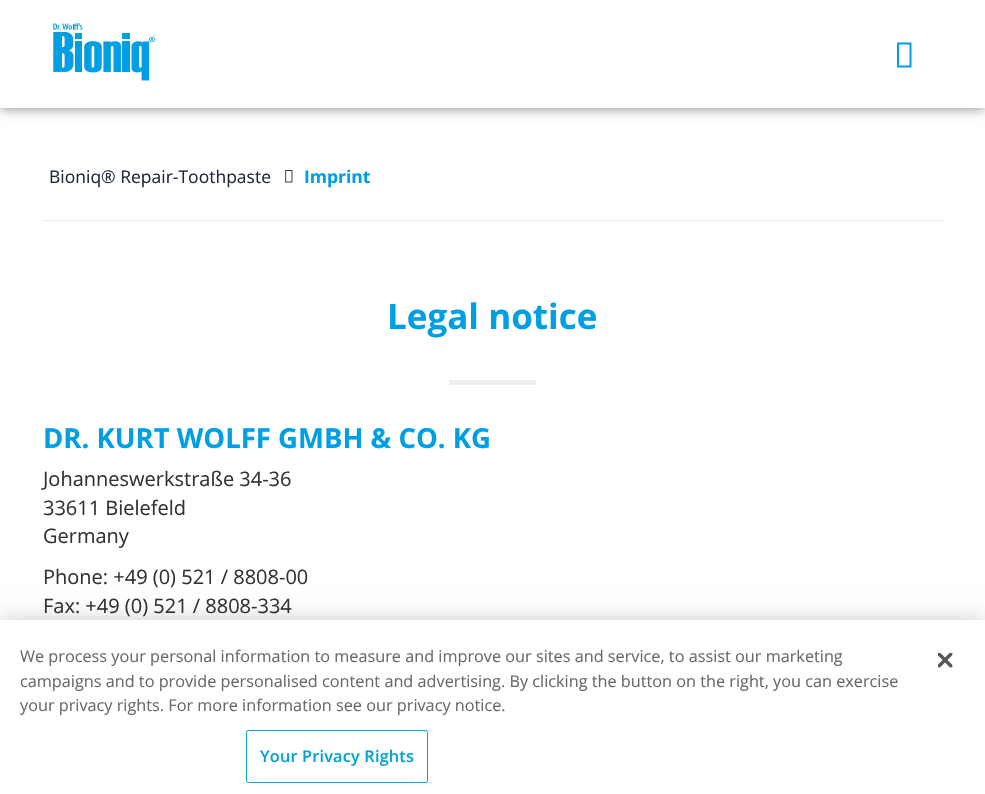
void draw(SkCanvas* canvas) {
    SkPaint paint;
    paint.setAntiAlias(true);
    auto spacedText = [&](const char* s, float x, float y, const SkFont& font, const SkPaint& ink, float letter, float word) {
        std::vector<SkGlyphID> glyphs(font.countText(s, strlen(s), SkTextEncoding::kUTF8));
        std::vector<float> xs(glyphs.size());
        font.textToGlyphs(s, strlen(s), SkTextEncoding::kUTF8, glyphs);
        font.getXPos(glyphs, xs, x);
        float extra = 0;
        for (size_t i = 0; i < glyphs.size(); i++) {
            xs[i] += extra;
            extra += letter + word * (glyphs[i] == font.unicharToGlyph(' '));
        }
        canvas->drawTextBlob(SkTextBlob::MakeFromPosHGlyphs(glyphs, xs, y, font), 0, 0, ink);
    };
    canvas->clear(0xFFFFFFFF);
    canvas->save();
    canvas->clipPath(SkPathBuilder(SkPathFillType::kEvenOdd).moveTo(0, 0).lineTo(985, 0).lineTo(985, 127).lineTo(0, 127).close().moveTo(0, 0).lineTo(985, 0).lineTo(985, 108).lineTo(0, 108).close().detach(), true);
    paint.setColor(0x80000000);
    paint.setMaskFilter(SkMaskFilter::MakeBlur(kNormal_SkBlurStyle, 6));
    canvas->drawRect(SkRect::MakeXYWH(0, 0, 985, 108), paint);
    paint.setMaskFilter(nullptr);
    canvas->restore();
    canvas->drawImageRect(SkImages::DeferredFromEncodedData(SkData::MakeFromFileName("img1.png")), SkRect::MakeXYWH(53, 23, 102, 58), SkSamplingOptions());
    paint.setColor(0xFF009EE3);
    canvas->drawPath(SkPathBuilder().moveTo(897, 67.5f).lineTo(897, 42.5f).lineTo(911.5f, 42.5f).lineTo(911.5f, 67.5f).close().moveTo(899, 65.5f).lineTo(909.5f, 65.5f).lineTo(909.5f, 44.5f).lineTo(899, 44.5f).close().detach(), paint);
    paint.setColor(0xFFEAEAEA);
    canvas->drawRect(SkRect::MakeXYWH(43, 220, 900, 1), paint);
    SkFont font1(fontMgr->matchFamilyStyle("Open Sans", SkFontStyle::Normal()), 17.5f);
    font1.setSubpixel(true);
    paint.setColor(0xFF1F2938);
    canvas->drawString("Bioniq® Repair-Toothpaste", 49, 183, font1, paint);
    canvas->drawImageRect(SkImages::DeferredFromEncodedData(SkData::MakeFromFileName("img2.png")), SkRect::MakeXYWH(285, 170, 8, 13), SkSamplingOptions());
    SkFont font2(fontMgr->matchFamilyStyle("Open Sans", SkFontStyle::Bold()), 17.5f);
    font2.setSubpixel(true);
    paint.setColor(0xFF009EE3);
    canvas->drawString("Imprint", 304, 183, font2, paint);
    SkFont font3(fontMgr->matchFamilyStyle("Open Sans", SkFontStyle::Bold()), 35);
    font3.setSubpixel(true);
    canvas->drawString("Legal notice", 387, 329, font3, paint);
    paint.setColor(0xFFEEEEEE);
    canvas->drawRect(SkRect::MakeXYWH(449, 380, 87, 5), paint);
    SkFont font4(fontMgr->matchFamilyStyle("Open Sans", SkFontStyle::Bold()), 27.5f);
    font4.setSubpixel(true);
    paint.setColor(0xFF009EE3);
    canvas->drawString("DR. KURT WOLFF GMBH & CO. KG", 43, 448, font4, paint);
    SkFont font5(fontMgr->matchFamilyStyle("Open Sans", SkFontStyle::Normal()), 20);
    font5.setSubpixel(true);
    paint.setColor(0xFF333333);
    canvas->drawString("Johanneswerkstraße 34-36", 43, 486, font5, paint);
    canvas->drawString("33611 Bielefeld", 43, 515, font5, paint);
    canvas->drawString("Germany", 43, 543, font5, paint);
    canvas->drawString("Phone: +49 (0) 521 / 8808-00", 43, 584, font5, paint);
    canvas->drawString("Fax: +49 (0) 521 / 8808-334", 43, 613, font5, paint);
    paint.setColor(0x33000000);
    paint.setMaskFilter(SkMaskFilter::MakeBlur(kNormal_SkBlurStyle, 11));
    canvas->drawRect(SkRect::MakeXYWH(0, 620, 985, 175), paint);
    paint.setMaskFilter(nullptr);
    paint.setColor(0xFFFFFFFF);
    canvas->drawRect(SkRect::MakeXYWH(0, 620, 985, 174), paint);
    SkFont font6(fontMgr->matchFamilyStyle("Open Sans", SkFontStyle::Normal()), 16.25f);
    font6.setSubpixel(true);
    paint.setColor(0xFF696969);
    canvas->drawString("We process your personal information to measure and improve our sites and service, to assist our marketing", 20, 662, font6, paint);
    canvas->drawString("campaigns and to provide personalised content and advertising. By clicking the button on the right, you can exercise", 20, 687, font6, paint);
    canvas->drawString("your privacy rights. For more information see our privacy notice.", 20, 711, font6, paint);
    paint.setStyle(SkPaint::kStroke_Style);
    paint.setStrokeWidth(1);
    paint.setColor(0xFF00A3D4);
    canvas->drawRoundRect(SkRect::MakeXYWH(246.5f, 730.5f, 181, 52), 2, 2, paint);
    SkFont font7(fontMgr->matchFamilyStyle("Open Sans", SkFontStyle(600, SkFontStyle::kNormal_Width, SkFontStyle::kUpright_Slant)), 16.25f);
    font7.setSubpixel(true);
    paint.setStyle(SkPaint::kFill_Style);
    spacedText("Your Privacy Rights", 260, 762, font7, paint, 0.2f, 0);
    canvas->drawImageRect(SkImages::DeferredFromEncodedData(SkData::MakeFromFileName("img3.png")), SkRect::MakeXYWH(938, 653, 15, 15), SkSamplingOptions());
}
